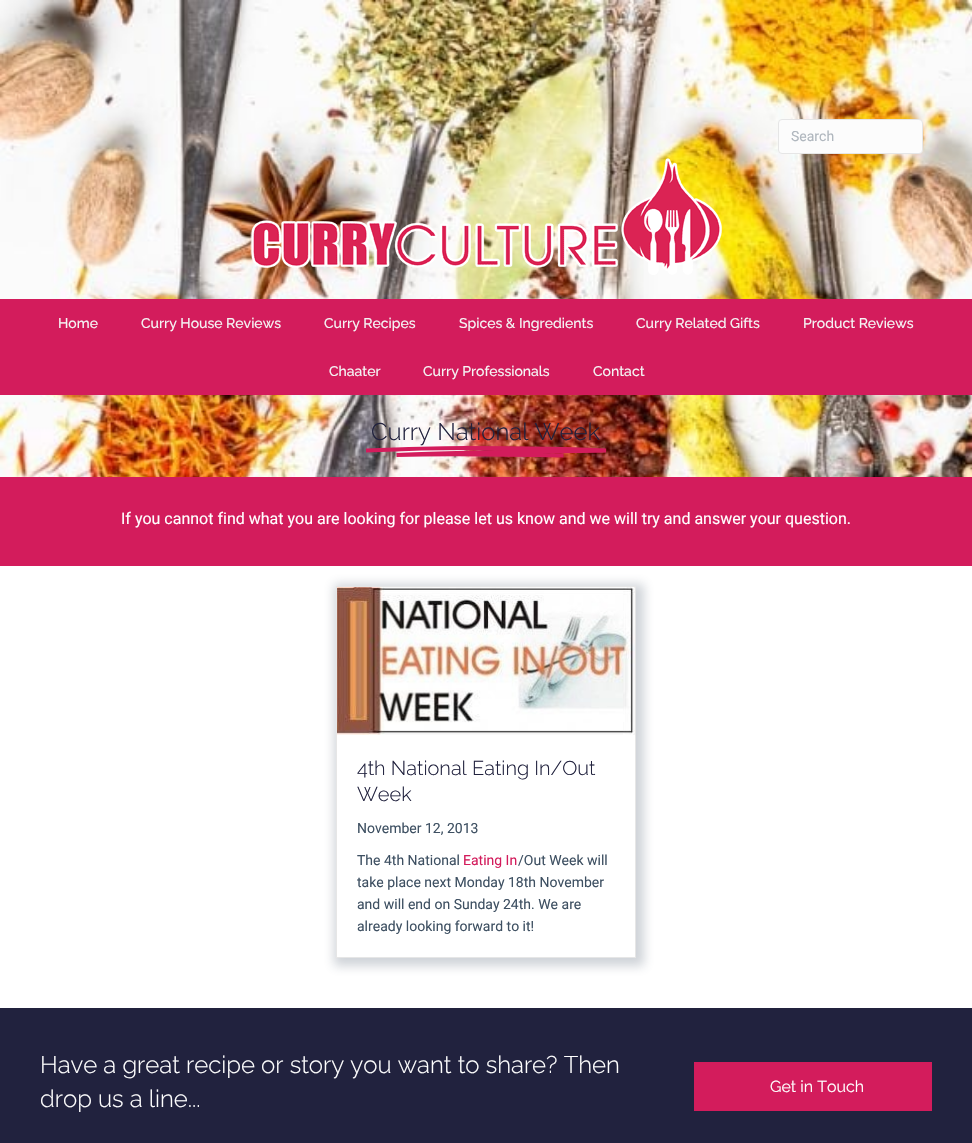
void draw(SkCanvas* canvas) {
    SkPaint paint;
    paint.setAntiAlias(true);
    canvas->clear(0xFFFFFFFF);
    canvas->drawImageRect(SkImages::DeferredFromEncodedData(SkData::MakeFromFileName("img1.png")), SkRect::MakeXYWH(0, 0, 972, 477), SkSamplingOptions());
    paint.setColor(0xFFFCFCFC);
    canvas->drawRoundRect(SkRect::MakeXYWH(778.5f, 119.5f, 144, 34), 3.5f, 3.5f, paint);
    paint.setStyle(SkPaint::kStroke_Style);
    paint.setStrokeWidth(1);
    paint.setColor(0xFFE6E6E6);
    canvas->drawRoundRect(SkRect::MakeXYWH(778.5f, 119.5f, 144, 34), 3.5f, 3.5f, paint);
    SkFont font1(fontMgr->matchFamilyStyle("Roboto", SkFontStyle::Normal()), 14);
    font1.setSubpixel(true);
    paint.setStyle(SkPaint::kFill_Style);
    paint.setColor(0xFFB0B7BE);
    canvas->drawString("Search", 791, 141, font1, paint);
    canvas->drawImageRect(SkImages::DeferredFromEncodedData(SkData::MakeFromFileName("img2.png")), SkRect::MakeXYWH(250, 158, 472, 117), SkSamplingOptions());
    paint.setColor(0xFFD31C5C);
    canvas->drawRect(SkRect::MakeXYWH(0, 299, 972, 96), paint);
    SkFont font2(fontMgr->matchFamilyStyle("Raleway", SkFontStyle(500, SkFontStyle::kNormal_Width, SkFontStyle::kUpright_Slant)), 14);
    font2.setSubpixel(true);
    paint.setColor(0xFFF5F5F5);
    canvas->drawString("Home", 58, 328, font2, paint);
    canvas->drawString("Curry House Reviews", 141, 328, font2, paint);
    canvas->drawString("Curry Recipes", 324, 328, font2, paint);
    canvas->drawString("Spices & Ingredients", 459, 328, font2, paint);
    canvas->drawString("Curry Related Gifts", 636, 328, font2, paint);
    canvas->drawString("Product Reviews", 803, 328, font2, paint);
    canvas->drawString("Chaater", 329, 376, font2, paint);
    canvas->drawString("Curry Professionals", 423, 376, font2, paint);
    canvas->drawString("Contact", 593, 376, font2, paint);
    SkFont font3(fontMgr->matchFamilyStyle("Raleway", SkFontStyle(300, SkFontStyle::kNormal_Width, SkFontStyle::kUpright_Slant)), 24);
    font3.setSubpixel(true);
    paint.setColor(0xFF21223E);
    canvas->drawString("Curry National Week", 371, 440, font3, paint);
    paint.setStyle(SkPaint::kStroke_Style);
    paint.setStrokeWidth(3.8f);
    paint.setColor(0xFFD31C5C);
    canvas->drawPath(SkPathBuilder().moveTo(366, 450.5f).cubicTo(390.5f, 449.5f, 441, 448, 465.5f, 448).cubicTo(526.5f, 448, 560, 448, 606, 450.5f).cubicTo(551, 451.5f, 451.5f, 452, 396.5f, 455).cubicTo(437.5f, 454, 523, 454.5f, 563.5f, 455.5f).lineTo(548.5f, 455.5f).detach(), paint);
    paint.setStyle(SkPaint::kFill_Style);
    canvas->drawRect(SkRect::MakeXYWH(0, 477, 972, 89), paint);
    SkFont font4(fontMgr->matchFamilyStyle("Roboto", SkFontStyle::Normal()), 16);
    font4.setSubpixel(true);
    paint.setColor(0xFFFFFFFF);
    canvas->drawString("If you cannot find what you are looking for please let us know and we will try and answer your question.", 121, 524, font4, paint);
    canvas->save();
    canvas->clipPath(SkPathBuilder(SkPathFillType::kEvenOdd).moveTo(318, 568).lineTo(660, 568).lineTo(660, 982).lineTo(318, 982).close().moveTo(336, 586).lineTo(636, 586).lineTo(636, 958).lineTo(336, 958).close().detach(), true);
    paint.setColor(0x403E5062);
    paint.setMaskFilter(SkMaskFilter::MakeBlur(kNormal_SkBlurStyle, 5));
    canvas->drawRect(SkRect::MakeXYWH(334, 584, 310, 382), paint);
    paint.setMaskFilter(nullptr);
    canvas->restore();
    paint.setStyle(SkPaint::kStroke_Style);
    paint.setStrokeWidth(1);
    paint.setColor(0xFFE6E6E6);
    canvas->drawRect(SkRect::MakeXYWH(336.5f, 586.5f, 299, 371), paint);
    canvas->drawImageRect(SkImages::DeferredFromEncodedData(SkData::MakeFromFileName("img3.png")), SkRect::MakeXYWH(337, 587, 298, 148), SkSamplingOptions());
    SkFont font5(fontMgr->matchFamilyStyle("Raleway", SkFontStyle(300, SkFontStyle::kNormal_Width, SkFontStyle::kUpright_Slant)), 20);
    font5.setSubpixel(true);
    paint.setStyle(SkPaint::kFill_Style);
    paint.setColor(0xFF21223E);
    canvas->drawString("4th National Eating In/Out", 357, 775, font5, paint);
    canvas->drawString("Week", 357, 801, font5, paint);
    paint.setColor(0xFF3E5062);
    canvas->drawString("November 12, 2013", 357, 833, font1, paint);
    canvas->drawString("The 4th National", 357, 865, font1, paint);
    paint.setColor(0xFFD31C5C);
    canvas->drawString("Eating In", 463, 865, font1, paint);
    paint.setColor(0xFF3E5062);
    canvas->drawString("/Out Week will", 518, 865, font1, paint);
    canvas->drawString("take place next Monday 18th November", 357, 887, font1, paint);
    canvas->drawString("and will end on Sunday 24th. We are", 357, 909, font1, paint);
    canvas->drawString("already looking forward to it!", 357, 931, font1, paint);
    paint.setColor(0xFF21223E);
    canvas->drawRect(SkRect::MakeXYWH(0, 1008, 972, 135), paint);
    paint.setColor(0xFFFFFFFF);
    canvas->drawString("Have a great recipe or story you want to share? Then", 40, 1073, font3, paint);
    canvas->drawString("drop us a line...", 40, 1107, font3, paint);
    paint.setColor(0xFFD31C5C);
    canvas->drawRect(SkRect::MakeXYWH(694, 1062, 238, 49), paint);
    SkFont font6(fontMgr->matchFamilyStyle("Raleway", SkFontStyle::Normal()), 16);
    font6.setSubpixel(true);
    paint.setColor(0xFFFFFFFF);
    canvas->drawString("Get in Touch", 770, 1092, font6, paint);
}
